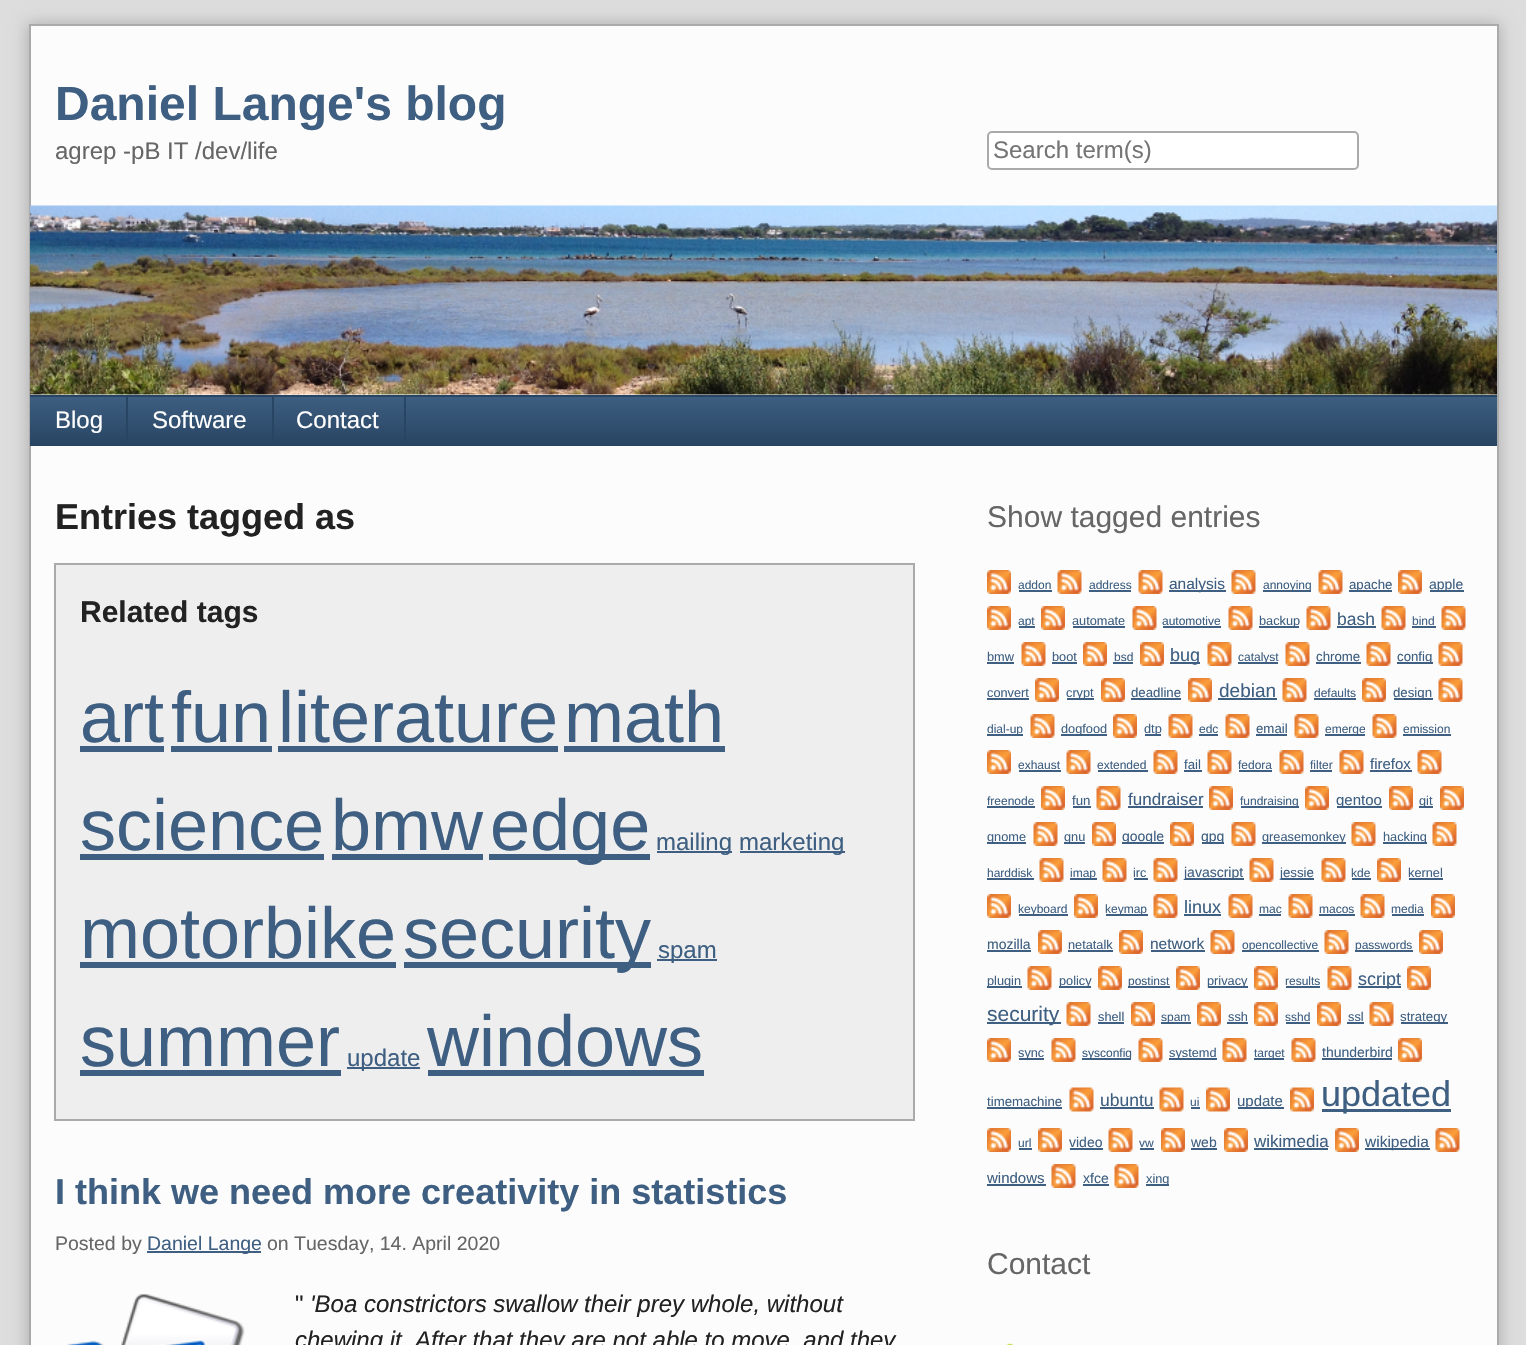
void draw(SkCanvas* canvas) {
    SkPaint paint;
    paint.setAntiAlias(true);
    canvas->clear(0xFFDDDDDD);
    paint.setColor(0x33000000);
    paint.setMaskFilter(SkMaskFilter::MakeBlur(kNormal_SkBlurStyle, 7.5f));
    canvas->drawRect(SkRect::MakeXYWH(27, 23, 1473, 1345), paint);
    paint.setMaskFilter(nullptr);
    paint.setColor(0xFFFCFCFC);
    canvas->drawRect(SkRect::MakeXYWH(30, 25, 1468, 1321), paint);
    paint.setStyle(SkPaint::kStroke_Style);
    paint.setStrokeWidth(2);
    paint.setColor(0xFFAAAAAA);
    canvas->drawRect(SkRect::MakeXYWH(30, 25, 1468, 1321), paint);
    SkFont font1(fontMgr->matchFamilyStyle("Liberation Sans", SkFontStyle::Bold()), 48);
    font1.setSubpixel(true);
    paint.setStyle(SkPaint::kFill_Style);
    paint.setColor(0xFF3E5F81);
    canvas->drawString("Daniel Lange's blog", 55, 120, font1, paint);
    SkFont font2(fontMgr->matchFamilyStyle("Liberation Sans", SkFontStyle::Normal()), 24);
    font2.setSubpixel(true);
    paint.setColor(0xFF666666);
    canvas->drawString("agrep -pB IT /dev/life", 55, 159, font2, paint);
    paint.setColor(0xFFFFFFFF);
    canvas->drawRoundRect(SkRect::MakeXYWH(988, 132, 370, 37), 4, 4, paint);
    paint.setStyle(SkPaint::kStroke_Style);
    paint.setColor(0xFFAAAAAA);
    canvas->drawRoundRect(SkRect::MakeXYWH(988, 132, 370, 37), 4, 4, paint);
    paint.setStyle(SkPaint::kFill_Style);
    paint.setColor(0xFF757575);
    canvas->drawString("Search term(s)", 993, 158, font2, paint);
    canvas->drawImageRect(SkImages::DeferredFromEncodedData(SkData::MakeFromFileName("img1.png")), SkRect::MakeXYWH(30, 205, 1467, 190), SkSamplingOptions());
    {
        const SkColor colors[] = {0xFF3E5F81, 0xFF294564};
        const float stops[] = {0, 1};
        const SkPoint ends[] = {{764, 396}, {764, 444}};
        paint.setShader(SkGradientShader::MakeLinear(ends, colors, stops, 2, SkTileMode::kClamp));
        paint.setAlpha(255);
    }
    canvas->drawRect(SkRect::MakeXYWH(30, 397, 1467, 47), paint);
    paint.setShader(nullptr);
    paint.setColor(0xFF294564);
    canvas->drawRect(SkRect::MakeXYWH(30, 395, 1467, 2), paint);
    canvas->drawRect(SkRect::MakeXYWH(30, 444, 1467, 2), paint);
    canvas->drawRect(SkRect::MakeXYWH(126, 396, 2, 48), paint);
    paint.setColor(0xFFFFFFFF);
    canvas->drawString("Blog", 55, 428, font2, paint);
    paint.setColor(0xFF294564);
    canvas->drawRect(SkRect::MakeXYWH(272, 396, 2, 48), paint);
    paint.setColor(0xFFFFFFFF);
    canvas->drawString("Software", 152, 428, font2, paint);
    paint.setColor(0xFF294564);
    canvas->drawRect(SkRect::MakeXYWH(404, 396, 2, 48), paint);
    paint.setColor(0xFFFFFFFF);
    canvas->drawString("Contact", 296, 428, font2, paint);
    SkFont font3(fontMgr->matchFamilyStyle("Liberation Sans", SkFontStyle::Bold()), 36);
    font3.setSubpixel(true);
    paint.setColor(0xFF222222);
    canvas->drawString("Entries tagged as", 55, 529, font3, paint);
    paint.setColor(0xFFEEEEEE);
    canvas->drawRect(SkRect::MakeXYWH(55, 564, 859, 556), paint);
    paint.setStyle(SkPaint::kStroke_Style);
    paint.setColor(0xFFAAAAAA);
    canvas->drawRect(SkRect::MakeXYWH(55, 564, 859, 556), paint);
    SkFont font4(fontMgr->matchFamilyStyle("Liberation Sans", SkFontStyle::Bold()), 30);
    font4.setSubpixel(true);
    paint.setStyle(SkPaint::kFill_Style);
    paint.setColor(0xFF222222);
    canvas->drawString("Related tags", 80, 622, font4, paint);
    SkFont font5(fontMgr->matchFamilyStyle("Liberation Sans", SkFontStyle::Normal()), 72);
    font5.setSubpixel(true);
    paint.setColor(0xFF3E5F81);
    canvas->drawString("art", 80, 742, font5, paint);
    canvas->drawRect(SkRect::MakeXYWH(80, 746, 84, 6), paint);
    canvas->drawString("fun", 171, 742, font5, paint);
    canvas->drawRect(SkRect::MakeXYWH(171, 746, 101, 6), paint);
    canvas->drawString("literature", 278, 742, font5, paint);
    canvas->drawRect(SkRect::MakeXYWH(278, 746, 280, 6), paint);
    canvas->drawString("math", 564, 742, font5, paint);
    canvas->drawRect(SkRect::MakeXYWH(564, 746, 161, 6), paint);
    canvas->drawString("science", 80, 850, font5, paint);
    canvas->drawRect(SkRect::MakeXYWH(80, 854, 244, 6), paint);
    canvas->drawString("bmw", 331, 850, font5, paint);
    canvas->drawRect(SkRect::MakeXYWH(332, 854, 151, 6), paint);
    canvas->drawRect(SkRect::MakeXYWH(489, 854, 161, 6), paint);
    canvas->drawString("edge", 490, 850, font5, paint);
    canvas->drawRect(SkRect::MakeXYWH(657, 851, 75, 2), paint);
    canvas->drawString("mailing", 656, 850, font2, paint);
    canvas->drawRect(SkRect::MakeXYWH(740, 851, 105, 2), paint);
    canvas->drawString("marketing", 739, 850, font2, paint);
    canvas->drawString("motorbike", 80, 958, font5, paint);
    canvas->drawRect(SkRect::MakeXYWH(80, 962, 316, 6), paint);
    canvas->drawRect(SkRect::MakeXYWH(404, 962, 247, 6), paint);
    canvas->drawString("security", 403, 958, font5, paint);
    canvas->drawRect(SkRect::MakeXYWH(657, 959, 60, 2), paint);
    canvas->drawString("spam", 658, 958, font2, paint);
    canvas->drawString("summer", 80, 1066, font5, paint);
    canvas->drawRect(SkRect::MakeXYWH(80, 1070, 261, 6), paint);
    canvas->drawRect(SkRect::MakeXYWH(347, 1067, 73, 2), paint);
    canvas->drawString("update", 347, 1066, font2, paint);
    canvas->drawString("windows", 427, 1066, font5, paint);
    canvas->drawRect(SkRect::MakeXYWH(428, 1070, 276, 6), paint);
    canvas->drawString("I think we need more creativity in statistics", 55, 1204, font3, paint);
    SkFont font6(fontMgr->matchFamilyStyle("Liberation Sans", SkFontStyle::Normal()), 19.5f);
    font6.setSubpixel(true);
    paint.setColor(0xFF666666);
    canvas->drawString("Posted by", 55, 1250, font6, paint);
    paint.setColor(0xFF3E5F81);
    canvas->drawRect(SkRect::MakeXYWH(147, 1251, 114, 2), paint);
    canvas->drawString("Daniel Lange", 147, 1250, font6, paint);
    paint.setColor(0xFF666666);
    canvas->drawString("on Tuesday, 14. April 2020", 267, 1250, font6, paint);
    canvas->drawImageRect(SkImages::DeferredFromEncodedData(SkData::MakeFromFileName("img2.png")), SkRect::MakeXYWH(67, 1294, 178, 51), SkSamplingOptions());
    paint.setColor(0xFF222222);
    canvas->drawString("\"", 295, 1312, font2, paint);
    SkFont font7(fontMgr->matchFamilyStyle("Liberation Sans", SkFontStyle::Italic()), 24);
    font7.setSubpixel(true);
    canvas->drawString("'Boa constrictors swallow their prey whole, without", 310, 1312, font7, paint);
    canvas->drawString("chewing it. After that they are not able to move, and they", 295, 1348, font7, paint);
    SkFont font8(fontMgr->matchFamilyStyle("Liberation Sans", SkFontStyle::Normal()), 30);
    font8.setSubpixel(true);
    paint.setColor(0xFF666666);
    canvas->drawString("Show tagged entries", 987, 527, font8, paint);
    canvas->drawImageRect(SkImages::DeferredFromEncodedData(SkData::MakeFromFileName("img3.png")), SkRect::MakeXYWH(987, 570, 24, 24), SkSamplingOptions());
    SkFont font9(fontMgr->matchFamilyStyle("Liberation Sans", SkFontStyle::Normal()), 12);
    font9.setSubpixel(true);
    paint.setColor(0xFF3E5F81);
    canvas->drawString("addon", 1018, 589, font9, paint);
    canvas->drawRect(SkRect::MakeXYWH(1019, 590, 33, 2), paint);
    canvas->drawImageRect(SkImages::DeferredFromEncodedData(SkData::MakeFromFileName("img4.png")), SkRect::MakeXYWH(1057, 570, 25, 24), SkSamplingOptions());
    canvas->drawString("address", 1089, 589, font9, paint);
    canvas->drawRect(SkRect::MakeXYWH(1089, 590, 42, 2), paint);
    canvas->drawImageRect(SkImages::DeferredFromEncodedData(SkData::MakeFromFileName("img4.png")), SkRect::MakeXYWH(1138, 570, 25, 24), SkSamplingOptions());
    canvas->drawRect(SkRect::MakeXYWH(1169, 590, 57, 2), paint);
    SkFont font10(fontMgr->matchFamilyStyle("Liberation Sans", SkFontStyle::Normal()), 15.5f);
    font10.setSubpixel(true);
    canvas->drawString("analysis", 1169, 589, font10, paint);
    canvas->drawImageRect(SkImages::DeferredFromEncodedData(SkData::MakeFromFileName("img5.png")), SkRect::MakeXYWH(1231, 570, 25, 24), SkSamplingOptions());
    canvas->drawRect(SkRect::MakeXYWH(1263, 590, 48, 2), paint);
    canvas->drawString("annoying", 1263, 589, font9, paint);
    canvas->drawImageRect(SkImages::DeferredFromEncodedData(SkData::MakeFromFileName("img4.png")), SkRect::MakeXYWH(1318, 570, 25, 24), SkSamplingOptions());
    canvas->drawRect(SkRect::MakeXYWH(1349, 590, 43, 2), paint);
    SkFont font11(fontMgr->matchFamilyStyle("Liberation Sans", SkFontStyle::Normal()), 13.25f);
    font11.setSubpixel(true);
    canvas->drawString("apache", 1349, 589, font11, paint);
    canvas->drawImageRect(SkImages::DeferredFromEncodedData(SkData::MakeFromFileName("img3.png")), SkRect::MakeXYWH(1398, 570, 24, 24), SkSamplingOptions());
    canvas->drawRect(SkRect::MakeXYWH(1430, 590, 34, 2), paint);
    SkFont font12(fontMgr->matchFamilyStyle("Liberation Sans", SkFontStyle::Normal()), 14);
    font12.setSubpixel(true);
    canvas->drawString("apple", 1429, 589, font12, paint);
    canvas->drawImageRect(SkImages::DeferredFromEncodedData(SkData::MakeFromFileName("img3.png")), SkRect::MakeXYWH(987, 606, 24, 24), SkSamplingOptions());
    canvas->drawRect(SkRect::MakeXYWH(1019, 626, 16, 2), paint);
    canvas->drawString("apt", 1018, 625, font9, paint);
    canvas->drawImageRect(SkImages::DeferredFromEncodedData(SkData::MakeFromFileName("img6.png")), SkRect::MakeXYWH(1041, 606, 24, 24), SkSamplingOptions());
    SkFont font13(fontMgr->matchFamilyStyle("Liberation Sans", SkFontStyle::Normal()), 12.75f);
    font13.setSubpixel(true);
    canvas->drawString("automate", 1072, 625, font13, paint);
    canvas->drawRect(SkRect::MakeXYWH(1073, 626, 52, 2), paint);
    canvas->drawImageRect(SkImages::DeferredFromEncodedData(SkData::MakeFromFileName("img4.png")), SkRect::MakeXYWH(1132, 606, 25, 24), SkSamplingOptions());
    canvas->drawString("automotive", 1162, 625, font9, paint);
    canvas->drawRect(SkRect::MakeXYWH(1163, 626, 58, 2), paint);
    canvas->drawImageRect(SkImages::DeferredFromEncodedData(SkData::MakeFromFileName("img5.png")), SkRect::MakeXYWH(1228, 606, 25, 24), SkSamplingOptions());
    canvas->drawRect(SkRect::MakeXYWH(1259, 626, 40, 2), paint);
    canvas->drawString("backup", 1259, 625, font13, paint);
    canvas->drawImageRect(SkImages::DeferredFromEncodedData(SkData::MakeFromFileName("img4.png")), SkRect::MakeXYWH(1306, 606, 25, 24), SkSamplingOptions());
    SkFont font14(fontMgr->matchFamilyStyle("Liberation Sans", SkFontStyle::Normal()), 17.5f);
    font14.setSubpixel(true);
    canvas->drawString("bash", 1337, 625, font14, paint);
    canvas->drawRect(SkRect::MakeXYWH(1337, 626, 39, 2), paint);
    canvas->drawImageRect(SkImages::DeferredFromEncodedData(SkData::MakeFromFileName("img4.png")), SkRect::MakeXYWH(1381, 606, 25, 24), SkSamplingOptions());
    canvas->drawString("bind", 1412, 625, font9, paint);
    canvas->drawRect(SkRect::MakeXYWH(1412, 626, 24, 2), paint);
    canvas->drawImageRect(SkImages::DeferredFromEncodedData(SkData::MakeFromFileName("img4.png")), SkRect::MakeXYWH(1441, 606, 25, 24), SkSamplingOptions());
    canvas->drawString("bmw", 987, 661, font13, paint);
    canvas->drawRect(SkRect::MakeXYWH(987, 662, 27, 2), paint);
    canvas->drawImageRect(SkImages::DeferredFromEncodedData(SkData::MakeFromFileName("img5.png")), SkRect::MakeXYWH(1021, 642, 25, 24), SkSamplingOptions());
    canvas->drawString("boot", 1052, 661, font13, paint);
    canvas->drawRect(SkRect::MakeXYWH(1052, 662, 25, 2), paint);
    canvas->drawImageRect(SkImages::DeferredFromEncodedData(SkData::MakeFromFileName("img6.png")), SkRect::MakeXYWH(1083, 642, 24, 24), SkSamplingOptions());
    canvas->drawString("bsd", 1114, 661, font9, paint);
    canvas->drawRect(SkRect::MakeXYWH(1113, 662, 20, 2), paint);
    canvas->drawImageRect(SkImages::DeferredFromEncodedData(SkData::MakeFromFileName("img6.png")), SkRect::MakeXYWH(1140, 642, 24, 24), SkSamplingOptions());
    canvas->drawRect(SkRect::MakeXYWH(1170, 662, 30, 2), paint);
    SkFont font15(fontMgr->matchFamilyStyle("Liberation Sans", SkFontStyle::Normal()), 18);
    font15.setSubpixel(true);
    canvas->drawString("bug", 1170, 661, font15, paint);
    canvas->drawImageRect(SkImages::DeferredFromEncodedData(SkData::MakeFromFileName("img5.png")), SkRect::MakeXYWH(1207, 642, 25, 24), SkSamplingOptions());
    canvas->drawRect(SkRect::MakeXYWH(1238, 662, 40, 2), paint);
    canvas->drawString("catalyst", 1238, 661, font9, paint);
    canvas->drawImageRect(SkImages::DeferredFromEncodedData(SkData::MakeFromFileName("img4.png")), SkRect::MakeXYWH(1285, 642, 25, 24), SkSamplingOptions());
    canvas->drawString("chrome", 1316, 661, font11, paint);
    canvas->drawRect(SkRect::MakeXYWH(1316, 662, 45, 2), paint);
    canvas->drawImageRect(SkImages::DeferredFromEncodedData(SkData::MakeFromFileName("img4.png")), SkRect::MakeXYWH(1366, 642, 25, 24), SkSamplingOptions());
    canvas->drawRect(SkRect::MakeXYWH(1397, 662, 36, 2), paint);
    canvas->drawString("config", 1397, 661, font11, paint);
    canvas->drawImageRect(SkImages::DeferredFromEncodedData(SkData::MakeFromFileName("img4.png")), SkRect::MakeXYWH(1438, 642, 25, 24), SkSamplingOptions());
    canvas->drawString("convert", 987, 697, font13, paint);
    canvas->drawRect(SkRect::MakeXYWH(987, 698, 42, 2), paint);
    canvas->drawImageRect(SkImages::DeferredFromEncodedData(SkData::MakeFromFileName("img7.png")), SkRect::MakeXYWH(1035, 678, 24, 24), SkSamplingOptions());
    canvas->drawRect(SkRect::MakeXYWH(1067, 698, 27, 2), paint);
    canvas->drawString("crypt", 1066, 697, font13, paint);
    canvas->drawImageRect(SkImages::DeferredFromEncodedData(SkData::MakeFromFileName("img6.png")), SkRect::MakeXYWH(1101, 678, 24, 24), SkSamplingOptions());
    canvas->drawString("deadline", 1131, 697, font11, paint);
    canvas->drawRect(SkRect::MakeXYWH(1131, 698, 50, 2), paint);
    canvas->drawImageRect(SkImages::DeferredFromEncodedData(SkData::MakeFromFileName("img6.png")), SkRect::MakeXYWH(1188, 678, 24, 24), SkSamplingOptions());
    SkFont font16(fontMgr->matchFamilyStyle("Liberation Sans", SkFontStyle::Normal()), 19);
    font16.setSubpixel(true);
    canvas->drawString("debian", 1219, 697, font16, paint);
    canvas->drawRect(SkRect::MakeXYWH(1218, 698, 59, 2), paint);
    canvas->drawImageRect(SkImages::DeferredFromEncodedData(SkData::MakeFromFileName("img4.png")), SkRect::MakeXYWH(1282, 678, 25, 24), SkSamplingOptions());
    canvas->drawString("defaults", 1314, 697, font9, paint);
    canvas->drawRect(SkRect::MakeXYWH(1314, 698, 42, 2), paint);
    canvas->drawImageRect(SkImages::DeferredFromEncodedData(SkData::MakeFromFileName("img6.png")), SkRect::MakeXYWH(1362, 678, 24, 24), SkSamplingOptions());
    canvas->drawRect(SkRect::MakeXYWH(1394, 698, 39, 2), paint);
    canvas->drawString("design", 1393, 697, font11, paint);
    canvas->drawImageRect(SkImages::DeferredFromEncodedData(SkData::MakeFromFileName("img4.png")), SkRect::MakeXYWH(1438, 678, 25, 24), SkSamplingOptions());
    canvas->drawRect(SkRect::MakeXYWH(987, 734, 36, 2), paint);
    canvas->drawString("dial-up", 987, 733, font9, paint);
    canvas->drawImageRect(SkImages::DeferredFromEncodedData(SkData::MakeFromFileName("img5.png")), SkRect::MakeXYWH(1030, 714, 25, 24), SkSamplingOptions());
    canvas->drawRect(SkRect::MakeXYWH(1061, 734, 46, 2), paint);
    canvas->drawString("dogfood", 1061, 733, font13, paint);
    canvas->drawImageRect(SkImages::DeferredFromEncodedData(SkData::MakeFromFileName("img6.png")), SkRect::MakeXYWH(1113, 714, 24, 24), SkSamplingOptions());
    canvas->drawRect(SkRect::MakeXYWH(1145, 734, 16, 2), paint);
    canvas->drawString("dtp", 1144, 733, font13, paint);
    canvas->drawImageRect(SkImages::DeferredFromEncodedData(SkData::MakeFromFileName("img4.png")), SkRect::MakeXYWH(1168, 714, 25, 24), SkSamplingOptions());
    canvas->drawString("edc", 1199, 733, font9, paint);
    canvas->drawRect(SkRect::MakeXYWH(1199, 734, 19, 2), paint);
    canvas->drawImageRect(SkImages::DeferredFromEncodedData(SkData::MakeFromFileName("img5.png")), SkRect::MakeXYWH(1225, 714, 25, 24), SkSamplingOptions());
    canvas->drawString("email", 1256, 733, font11, paint);
    canvas->drawRect(SkRect::MakeXYWH(1256, 734, 31, 2), paint);
    canvas->drawImageRect(SkImages::DeferredFromEncodedData(SkData::MakeFromFileName("img4.png")), SkRect::MakeXYWH(1294, 714, 25, 24), SkSamplingOptions());
    canvas->drawRect(SkRect::MakeXYWH(1325, 734, 40, 2), paint);
    canvas->drawString("emerge", 1325, 733, font9, paint);
    canvas->drawImageRect(SkImages::DeferredFromEncodedData(SkData::MakeFromFileName("img4.png")), SkRect::MakeXYWH(1372, 714, 25, 24), SkSamplingOptions());
    canvas->drawString("emission", 1403, 733, font9, paint);
    canvas->drawRect(SkRect::MakeXYWH(1403, 734, 48, 2), paint);
    canvas->drawImageRect(SkImages::DeferredFromEncodedData(SkData::MakeFromFileName("img3.png")), SkRect::MakeXYWH(987, 750, 24, 24), SkSamplingOptions());
    canvas->drawString("exhaust", 1018, 769, font9, paint);
    canvas->drawRect(SkRect::MakeXYWH(1019, 770, 42, 2), paint);
    canvas->drawImageRect(SkImages::DeferredFromEncodedData(SkData::MakeFromFileName("img5.png")), SkRect::MakeXYWH(1066, 750, 25, 24), SkSamplingOptions());
    canvas->drawString("extended", 1097, 769, font9, paint);
    canvas->drawRect(SkRect::MakeXYWH(1098, 770, 50, 2), paint);
    canvas->drawImageRect(SkImages::DeferredFromEncodedData(SkData::MakeFromFileName("img4.png")), SkRect::MakeXYWH(1153, 750, 25, 24), SkSamplingOptions());
    canvas->drawString("fail", 1184, 769, font11, paint);
    canvas->drawRect(SkRect::MakeXYWH(1184, 770, 18, 2), paint);
    canvas->drawImageRect(SkImages::DeferredFromEncodedData(SkData::MakeFromFileName("img5.png")), SkRect::MakeXYWH(1207, 750, 25, 24), SkSamplingOptions());
    canvas->drawString("fedora", 1238, 769, font9, paint);
    canvas->drawRect(SkRect::MakeXYWH(1239, 770, 33, 2), paint);
    canvas->drawImageRect(SkImages::DeferredFromEncodedData(SkData::MakeFromFileName("img8.png")), SkRect::MakeXYWH(1279, 750, 25, 24), SkSamplingOptions());
    canvas->drawString("filter", 1310, 769, font9, paint);
    canvas->drawRect(SkRect::MakeXYWH(1310, 770, 22, 2), paint);
    canvas->drawImageRect(SkImages::DeferredFromEncodedData(SkData::MakeFromFileName("img4.png")), SkRect::MakeXYWH(1339, 750, 25, 24), SkSamplingOptions());
    SkFont font17(fontMgr->matchFamilyStyle("Liberation Sans", SkFontStyle::Normal()), 15);
    font17.setSubpixel(true);
    canvas->drawString("firefox", 1370, 769, font17, paint);
    canvas->drawRect(SkRect::MakeXYWH(1370, 770, 42, 2), paint);
    canvas->drawImageRect(SkImages::DeferredFromEncodedData(SkData::MakeFromFileName("img4.png")), SkRect::MakeXYWH(1417, 750, 25, 24), SkSamplingOptions());
    canvas->drawString("freenode", 987, 805, font9, paint);
    canvas->drawRect(SkRect::MakeXYWH(987, 806, 48, 2), paint);
    canvas->drawImageRect(SkImages::DeferredFromEncodedData(SkData::MakeFromFileName("img6.png")), SkRect::MakeXYWH(1041, 786, 24, 24), SkSamplingOptions());
    canvas->drawString("fun", 1072, 805, font11, paint);
    canvas->drawRect(SkRect::MakeXYWH(1073, 806, 18, 2), paint);
    canvas->drawImageRect(SkImages::DeferredFromEncodedData(SkData::MakeFromFileName("img5.png")), SkRect::MakeXYWH(1096, 786, 25, 24), SkSamplingOptions());
    SkFont font18(fontMgr->matchFamilyStyle("Liberation Sans", SkFontStyle::Normal()), 17);
    font18.setSubpixel(true);
    canvas->drawString("fundraiser", 1128, 805, font18, paint);
    canvas->drawRect(SkRect::MakeXYWH(1128, 806, 75, 2), paint);
    canvas->drawImageRect(SkImages::DeferredFromEncodedData(SkData::MakeFromFileName("img6.png")), SkRect::MakeXYWH(1209, 786, 24, 24), SkSamplingOptions());
    canvas->drawRect(SkRect::MakeXYWH(1241, 806, 58, 2), paint);
    canvas->drawString("fundraising", 1240, 805, font9, paint);
    canvas->drawImageRect(SkImages::DeferredFromEncodedData(SkData::MakeFromFileName("img3.png")), SkRect::MakeXYWH(1305, 786, 24, 24), SkSamplingOptions());
    canvas->drawRect(SkRect::MakeXYWH(1337, 806, 45, 2), paint);
    canvas->drawString("gentoo", 1336, 805, font17, paint);
    canvas->drawImageRect(SkImages::DeferredFromEncodedData(SkData::MakeFromFileName("img3.png")), SkRect::MakeXYWH(1389, 786, 24, 24), SkSamplingOptions());
    canvas->drawRect(SkRect::MakeXYWH(1419, 806, 14, 2), paint);
    canvas->drawString("git", 1419, 805, font13, paint);
    canvas->drawImageRect(SkImages::DeferredFromEncodedData(SkData::MakeFromFileName("img3.png")), SkRect::MakeXYWH(1440, 786, 24, 24), SkSamplingOptions());
    canvas->drawRect(SkRect::MakeXYWH(987, 842, 39, 2), paint);
    canvas->drawString("gnome", 987, 841, font13, paint);
    canvas->drawImageRect(SkImages::DeferredFromEncodedData(SkData::MakeFromFileName("img5.png")), SkRect::MakeXYWH(1033, 822, 25, 24), SkSamplingOptions());
    canvas->drawRect(SkRect::MakeXYWH(1064, 842, 21, 2), paint);
    canvas->drawString("gnu", 1064, 841, font13, paint);
    canvas->drawImageRect(SkImages::DeferredFromEncodedData(SkData::MakeFromFileName("img6.png")), SkRect::MakeXYWH(1092, 822, 24, 24), SkSamplingOptions());
    canvas->drawRect(SkRect::MakeXYWH(1122, 842, 42, 2), paint);
    canvas->drawString("google", 1122, 841, font12, paint);
    canvas->drawImageRect(SkImages::DeferredFromEncodedData(SkData::MakeFromFileName("img6.png")), SkRect::MakeXYWH(1170, 822, 24, 24), SkSamplingOptions());
    canvas->drawRect(SkRect::MakeXYWH(1202, 842, 22, 2), paint);
    canvas->drawString("gpg", 1201, 841, font12, paint);
    canvas->drawImageRect(SkImages::DeferredFromEncodedData(SkData::MakeFromFileName("img5.png")), SkRect::MakeXYWH(1231, 822, 25, 24), SkSamplingOptions());
    canvas->drawRect(SkRect::MakeXYWH(1262, 842, 84, 2), paint);
    canvas->drawString("greasemonkey", 1262, 841, font13, paint);
    canvas->drawImageRect(SkImages::DeferredFromEncodedData(SkData::MakeFromFileName("img4.png")), SkRect::MakeXYWH(1351, 822, 25, 24), SkSamplingOptions());
    canvas->drawRect(SkRect::MakeXYWH(1383, 842, 44, 2), paint);
    canvas->drawString("hacking", 1383, 841, font13, paint);
    canvas->drawImageRect(SkImages::DeferredFromEncodedData(SkData::MakeFromFileName("img4.png")), SkRect::MakeXYWH(1432, 822, 25, 24), SkSamplingOptions());
    canvas->drawString("harddisk", 987, 877, font9, paint);
    canvas->drawRect(SkRect::MakeXYWH(987, 878, 47, 2), paint);
    canvas->drawImageRect(SkImages::DeferredFromEncodedData(SkData::MakeFromFileName("img5.png")), SkRect::MakeXYWH(1039, 858, 25, 24), SkSamplingOptions());
    canvas->drawRect(SkRect::MakeXYWH(1070, 878, 27, 2), paint);
    canvas->drawString("imap", 1070, 877, font9, paint);
    canvas->drawImageRect(SkImages::DeferredFromEncodedData(SkData::MakeFromFileName("img5.png")), SkRect::MakeXYWH(1102, 858, 25, 24), SkSamplingOptions());
    canvas->drawString("irc", 1133, 877, font13, paint);
    canvas->drawRect(SkRect::MakeXYWH(1134, 878, 14, 2), paint);
    canvas->drawImageRect(SkImages::DeferredFromEncodedData(SkData::MakeFromFileName("img4.png")), SkRect::MakeXYWH(1153, 858, 25, 24), SkSamplingOptions());
    canvas->drawRect(SkRect::MakeXYWH(1185, 878, 59, 2), paint);
    canvas->drawString("javascript", 1184, 877, font12, paint);
    canvas->drawImageRect(SkImages::DeferredFromEncodedData(SkData::MakeFromFileName("img5.png")), SkRect::MakeXYWH(1249, 858, 25, 24), SkSamplingOptions());
    canvas->drawRect(SkRect::MakeXYWH(1281, 878, 33, 2), paint);
    canvas->drawString("jessie", 1280, 877, font11, paint);
    canvas->drawImageRect(SkImages::DeferredFromEncodedData(SkData::MakeFromFileName("img4.png")), SkRect::MakeXYWH(1321, 858, 25, 24), SkSamplingOptions());
    canvas->drawString("kde", 1351, 877, font9, paint);
    canvas->drawRect(SkRect::MakeXYWH(1352, 878, 19, 2), paint);
    canvas->drawImageRect(SkImages::DeferredFromEncodedData(SkData::MakeFromFileName("img3.png")), SkRect::MakeXYWH(1377, 858, 24, 24), SkSamplingOptions());
    canvas->drawString("kernel", 1408, 877, font13, paint);
    canvas->drawRect(SkRect::MakeXYWH(1409, 878, 34, 2), paint);
    canvas->drawImageRect(SkImages::DeferredFromEncodedData(SkData::MakeFromFileName("img3.png")), SkRect::MakeXYWH(987, 894, 24, 24), SkSamplingOptions());
    canvas->drawRect(SkRect::MakeXYWH(1019, 914, 49, 2), paint);
    canvas->drawString("keyboard", 1018, 913, font9, paint);
    canvas->drawImageRect(SkImages::DeferredFromEncodedData(SkData::MakeFromFileName("img6.png")), SkRect::MakeXYWH(1074, 894, 24, 24), SkSamplingOptions());
    canvas->drawRect(SkRect::MakeXYWH(1106, 914, 42, 2), paint);
    canvas->drawString("keymap", 1105, 913, font9, paint);
    canvas->drawImageRect(SkImages::DeferredFromEncodedData(SkData::MakeFromFileName("img4.png")), SkRect::MakeXYWH(1153, 894, 25, 24), SkSamplingOptions());
    canvas->drawString("linux", 1184, 913, font15, paint);
    canvas->drawRect(SkRect::MakeXYWH(1184, 914, 37, 2), paint);
    canvas->drawImageRect(SkImages::DeferredFromEncodedData(SkData::MakeFromFileName("img5.png")), SkRect::MakeXYWH(1228, 894, 25, 24), SkSamplingOptions());
    canvas->drawString("mac", 1259, 913, font9, paint);
    canvas->drawRect(SkRect::MakeXYWH(1259, 914, 22, 2), paint);
    canvas->drawImageRect(SkImages::DeferredFromEncodedData(SkData::MakeFromFileName("img4.png")), SkRect::MakeXYWH(1288, 894, 25, 24), SkSamplingOptions());
    canvas->drawString("macos", 1319, 913, font9, paint);
    canvas->drawRect(SkRect::MakeXYWH(1319, 914, 36, 2), paint);
    canvas->drawImageRect(SkImages::DeferredFromEncodedData(SkData::MakeFromFileName("img4.png")), SkRect::MakeXYWH(1360, 894, 25, 24), SkSamplingOptions());
    canvas->drawString("media", 1391, 913, font9, paint);
    canvas->drawRect(SkRect::MakeXYWH(1392, 914, 32, 2), paint);
    canvas->drawImageRect(SkImages::DeferredFromEncodedData(SkData::MakeFromFileName("img3.png")), SkRect::MakeXYWH(1431, 894, 24, 24), SkSamplingOptions());
    canvas->drawString("mozilla", 987, 949, font12, paint);
    canvas->drawRect(SkRect::MakeXYWH(987, 950, 44, 2), paint);
    canvas->drawImageRect(SkImages::DeferredFromEncodedData(SkData::MakeFromFileName("img7.png")), SkRect::MakeXYWH(1038, 930, 24, 24), SkSamplingOptions());
    canvas->drawString("netatalk", 1068, 949, font13, paint);
    canvas->drawRect(SkRect::MakeXYWH(1068, 950, 45, 2), paint);
    canvas->drawImageRect(SkImages::DeferredFromEncodedData(SkData::MakeFromFileName("img6.png")), SkRect::MakeXYWH(1119, 930, 24, 24), SkSamplingOptions());
    canvas->drawString("network", 1150, 949, font10, paint);
    canvas->drawRect(SkRect::MakeXYWH(1151, 950, 54, 2), paint);
    canvas->drawImageRect(SkImages::DeferredFromEncodedData(SkData::MakeFromFileName("img5.png")), SkRect::MakeXYWH(1210, 930, 25, 24), SkSamplingOptions());
    canvas->drawRect(SkRect::MakeXYWH(1242, 950, 77, 2), paint);
    canvas->drawString("opencollective", 1242, 949, font9, paint);
    canvas->drawImageRect(SkImages::DeferredFromEncodedData(SkData::MakeFromFileName("img4.png")), SkRect::MakeXYWH(1324, 930, 25, 24), SkSamplingOptions());
    canvas->drawRect(SkRect::MakeXYWH(1355, 950, 58, 2), paint);
    canvas->drawString("passwords", 1355, 949, font9, paint);
    canvas->drawImageRect(SkImages::DeferredFromEncodedData(SkData::MakeFromFileName("img3.png")), SkRect::MakeXYWH(1419, 930, 24, 24), SkSamplingOptions());
    canvas->drawRect(SkRect::MakeXYWH(987, 986, 35, 2), paint);
    canvas->drawString("plugin", 987, 985, font13, paint);
    canvas->drawImageRect(SkImages::DeferredFromEncodedData(SkData::MakeFromFileName("img5.png")), SkRect::MakeXYWH(1027, 966, 25, 24), SkSamplingOptions());
    canvas->drawRect(SkRect::MakeXYWH(1059, 986, 32, 2), paint);
    canvas->drawString("policy", 1059, 985, font13, paint);
    canvas->drawImageRect(SkImages::DeferredFromEncodedData(SkData::MakeFromFileName("img6.png")), SkRect::MakeXYWH(1098, 966, 24, 24), SkSamplingOptions());
    canvas->drawRect(SkRect::MakeXYWH(1128, 986, 42, 2), paint);
    canvas->drawString("postinst", 1128, 985, font9, paint);
    canvas->drawImageRect(SkImages::DeferredFromEncodedData(SkData::MakeFromFileName("img6.png")), SkRect::MakeXYWH(1176, 966, 24, 24), SkSamplingOptions());
    canvas->drawRect(SkRect::MakeXYWH(1208, 986, 40, 2), paint);
    canvas->drawString("privacy", 1207, 985, font13, paint);
    canvas->drawImageRect(SkImages::DeferredFromEncodedData(SkData::MakeFromFileName("img9.png")), SkRect::MakeXYWH(1254, 966, 24, 24), SkSamplingOptions());
    canvas->drawString("results", 1285, 985, font9, paint);
    canvas->drawRect(SkRect::MakeXYWH(1286, 986, 34, 2), paint);
    canvas->drawImageRect(SkImages::DeferredFromEncodedData(SkData::MakeFromFileName("img4.png")), SkRect::MakeXYWH(1327, 966, 25, 24), SkSamplingOptions());
    canvas->drawRect(SkRect::MakeXYWH(1358, 986, 43, 2), paint);
    canvas->drawString("script", 1358, 985, font15, paint);
    canvas->drawImageRect(SkImages::DeferredFromEncodedData(SkData::MakeFromFileName("img3.png")), SkRect::MakeXYWH(1407, 966, 24, 24), SkSamplingOptions());
    canvas->drawRect(SkRect::MakeXYWH(987, 1022, 74, 2), paint);
    SkFont font19(fontMgr->matchFamilyStyle("Liberation Sans", SkFontStyle::Normal()), 21);
    font19.setSubpixel(true);
    canvas->drawString("security", 987, 1021, font19, paint);
    canvas->drawImageRect(SkImages::DeferredFromEncodedData(SkData::MakeFromFileName("img5.png")), SkRect::MakeXYWH(1066, 1002, 25, 24), SkSamplingOptions());
    canvas->drawString("shell", 1098, 1021, font13, paint);
    canvas->drawRect(SkRect::MakeXYWH(1098, 1022, 26, 2), paint);
    canvas->drawImageRect(SkImages::DeferredFromEncodedData(SkData::MakeFromFileName("img6.png")), SkRect::MakeXYWH(1131, 1002, 24, 24), SkSamplingOptions());
    canvas->drawRect(SkRect::MakeXYWH(1161, 1022, 30, 2), paint);
    canvas->drawString("spam", 1161, 1021, font9, paint);
    canvas->drawImageRect(SkImages::DeferredFromEncodedData(SkData::MakeFromFileName("img6.png")), SkRect::MakeXYWH(1197, 1002, 24, 24), SkSamplingOptions());
    canvas->drawString("ssh", 1228, 1021, font13, paint);
    canvas->drawRect(SkRect::MakeXYWH(1227, 1022, 21, 2), paint);
    canvas->drawImageRect(SkImages::DeferredFromEncodedData(SkData::MakeFromFileName("img9.png")), SkRect::MakeXYWH(1254, 1002, 24, 24), SkSamplingOptions());
    canvas->drawString("sshd", 1285, 1021, font9, paint);
    canvas->drawRect(SkRect::MakeXYWH(1286, 1022, 24, 2), paint);
    canvas->drawImageRect(SkImages::DeferredFromEncodedData(SkData::MakeFromFileName("img3.png")), SkRect::MakeXYWH(1317, 1002, 24, 24), SkSamplingOptions());
    canvas->drawString("ssl", 1348, 1021, font13, paint);
    canvas->drawRect(SkRect::MakeXYWH(1347, 1022, 17, 2), paint);
    canvas->drawImageRect(SkImages::DeferredFromEncodedData(SkData::MakeFromFileName("img4.png")), SkRect::MakeXYWH(1369, 1002, 25, 24), SkSamplingOptions());
    canvas->drawRect(SkRect::MakeXYWH(1401, 1022, 47, 2), paint);
    canvas->drawString("strategy", 1400, 1021, font11, paint);
    canvas->drawImageRect(SkImages::DeferredFromEncodedData(SkData::MakeFromFileName("img3.png")), SkRect::MakeXYWH(987, 1038, 24, 24), SkSamplingOptions());
    canvas->drawRect(SkRect::MakeXYWH(1019, 1058, 25, 2), paint);
    canvas->drawString("sync", 1018, 1057, font13, paint);
    canvas->drawImageRect(SkImages::DeferredFromEncodedData(SkData::MakeFromFileName("img4.png")), SkRect::MakeXYWH(1051, 1038, 25, 24), SkSamplingOptions());
    canvas->drawRect(SkRect::MakeXYWH(1082, 1058, 49, 2), paint);
    canvas->drawString("sysconfig", 1082, 1057, font9, paint);
    canvas->drawImageRect(SkImages::DeferredFromEncodedData(SkData::MakeFromFileName("img4.png")), SkRect::MakeXYWH(1138, 1038, 25, 24), SkSamplingOptions());
    canvas->drawRect(SkRect::MakeXYWH(1169, 1058, 48, 2), paint);
    canvas->drawString("systemd", 1169, 1057, font13, paint);
    canvas->drawImageRect(SkImages::DeferredFromEncodedData(SkData::MakeFromFileName("img5.png")), SkRect::MakeXYWH(1222, 1038, 25, 24), SkSamplingOptions());
    canvas->drawRect(SkRect::MakeXYWH(1254, 1058, 30, 2), paint);
    canvas->drawString("target", 1254, 1057, font9, paint);
    canvas->drawImageRect(SkImages::DeferredFromEncodedData(SkData::MakeFromFileName("img4.png")), SkRect::MakeXYWH(1291, 1038, 25, 24), SkSamplingOptions());
    canvas->drawString("thunderbird", 1322, 1057, font12, paint);
    canvas->drawRect(SkRect::MakeXYWH(1322, 1058, 70, 2), paint);
    canvas->drawImageRect(SkImages::DeferredFromEncodedData(SkData::MakeFromFileName("img3.png")), SkRect::MakeXYWH(1398, 1038, 24, 24), SkSamplingOptions());
    canvas->drawString("timemachine", 987, 1106, font11, paint);
    canvas->drawRect(SkRect::MakeXYWH(987, 1107, 75, 2), paint);
    canvas->drawImageRect(SkImages::DeferredFromEncodedData(SkData::MakeFromFileName("img10.png")), SkRect::MakeXYWH(1069, 1087, 25, 25), SkSamplingOptions());
    canvas->drawString("ubuntu", 1100, 1106, font14, paint);
    canvas->drawRect(SkRect::MakeXYWH(1100, 1107, 54, 2), paint);
    canvas->drawImageRect(SkImages::DeferredFromEncodedData(SkData::MakeFromFileName("img11.png")), SkRect::MakeXYWH(1159, 1087, 25, 25), SkSamplingOptions());
    canvas->drawString("ui", 1190, 1106, font9, paint);
    canvas->drawRect(SkRect::MakeXYWH(1191, 1107, 9, 2), paint);
    canvas->drawImageRect(SkImages::DeferredFromEncodedData(SkData::MakeFromFileName("img12.png")), SkRect::MakeXYWH(1206, 1087, 24, 25), SkSamplingOptions());
    canvas->drawRect(SkRect::MakeXYWH(1238, 1107, 46, 2), paint);
    canvas->drawString("update", 1237, 1106, font17, paint);
    canvas->drawImageRect(SkImages::DeferredFromEncodedData(SkData::MakeFromFileName("img13.png")), SkRect::MakeXYWH(1290, 1087, 24, 25), SkSamplingOptions());
    canvas->drawRect(SkRect::MakeXYWH(1322, 1109, 129, 3), paint);
    SkFont font20(fontMgr->matchFamilyStyle("Liberation Sans", SkFontStyle::Normal()), 36);
    font20.setSubpixel(true);
    canvas->drawString("updated", 1321, 1106, font20, paint);
    canvas->drawImageRect(SkImages::DeferredFromEncodedData(SkData::MakeFromFileName("img3.png")), SkRect::MakeXYWH(987, 1128, 24, 24), SkSamplingOptions());
    canvas->drawString("url", 1018, 1147, font9, paint);
    canvas->drawRect(SkRect::MakeXYWH(1019, 1148, 13, 2), paint);
    canvas->drawImageRect(SkImages::DeferredFromEncodedData(SkData::MakeFromFileName("img7.png")), SkRect::MakeXYWH(1038, 1128, 24, 24), SkSamplingOptions());
    canvas->drawString("video", 1069, 1147, font12, paint);
    canvas->drawRect(SkRect::MakeXYWH(1070, 1148, 33, 2), paint);
    canvas->drawImageRect(SkImages::DeferredFromEncodedData(SkData::MakeFromFileName("img5.png")), SkRect::MakeXYWH(1108, 1128, 25, 24), SkSamplingOptions());
    canvas->drawString("vw", 1139, 1147, font9, paint);
    canvas->drawRect(SkRect::MakeXYWH(1140, 1148, 14, 2), paint);
    canvas->drawImageRect(SkImages::DeferredFromEncodedData(SkData::MakeFromFileName("img6.png")), SkRect::MakeXYWH(1161, 1128, 24, 24), SkSamplingOptions());
    canvas->drawString("web", 1191, 1147, font12, paint);
    canvas->drawRect(SkRect::MakeXYWH(1191, 1148, 26, 2), paint);
    canvas->drawImageRect(SkImages::DeferredFromEncodedData(SkData::MakeFromFileName("img6.png")), SkRect::MakeXYWH(1224, 1128, 24, 24), SkSamplingOptions());
    canvas->drawString("wikimedia", 1254, 1147, font18, paint);
    canvas->drawRect(SkRect::MakeXYWH(1254, 1148, 74, 2), paint);
    canvas->drawImageRect(SkImages::DeferredFromEncodedData(SkData::MakeFromFileName("img6.png")), SkRect::MakeXYWH(1335, 1128, 24, 24), SkSamplingOptions());
    canvas->drawRect(SkRect::MakeXYWH(1365, 1148, 65, 2), paint);
    canvas->drawString("wikipedia", 1365, 1147, font10, paint);
    canvas->drawImageRect(SkImages::DeferredFromEncodedData(SkData::MakeFromFileName("img4.png")), SkRect::MakeXYWH(1435, 1128, 25, 24), SkSamplingOptions());
    canvas->drawString("windows", 987, 1183, font17, paint);
    canvas->drawRect(SkRect::MakeXYWH(987, 1184, 59, 2), paint);
    canvas->drawImageRect(SkImages::DeferredFromEncodedData(SkData::MakeFromFileName("img4.png")), SkRect::MakeXYWH(1051, 1164, 25, 24), SkSamplingOptions());
    canvas->drawString("xfce", 1083, 1183, font12, paint);
    canvas->drawRect(SkRect::MakeXYWH(1083, 1184, 26, 2), paint);
    canvas->drawImageRect(SkImages::DeferredFromEncodedData(SkData::MakeFromFileName("img4.png")), SkRect::MakeXYWH(1114, 1164, 25, 24), SkSamplingOptions());
    canvas->drawRect(SkRect::MakeXYWH(1146, 1184, 23, 2), paint);
    canvas->drawString("xing", 1146, 1183, font13, paint);
    paint.setColor(0xFF666666);
    canvas->drawString("Contact", 987, 1274, font8, paint);
    canvas->drawImageRect(SkImages::DeferredFromEncodedData(SkData::MakeFromFileName("img14.png")), SkRect::MakeXYWH(1006, 1343, 7, 2), SkSamplingOptions());
}
